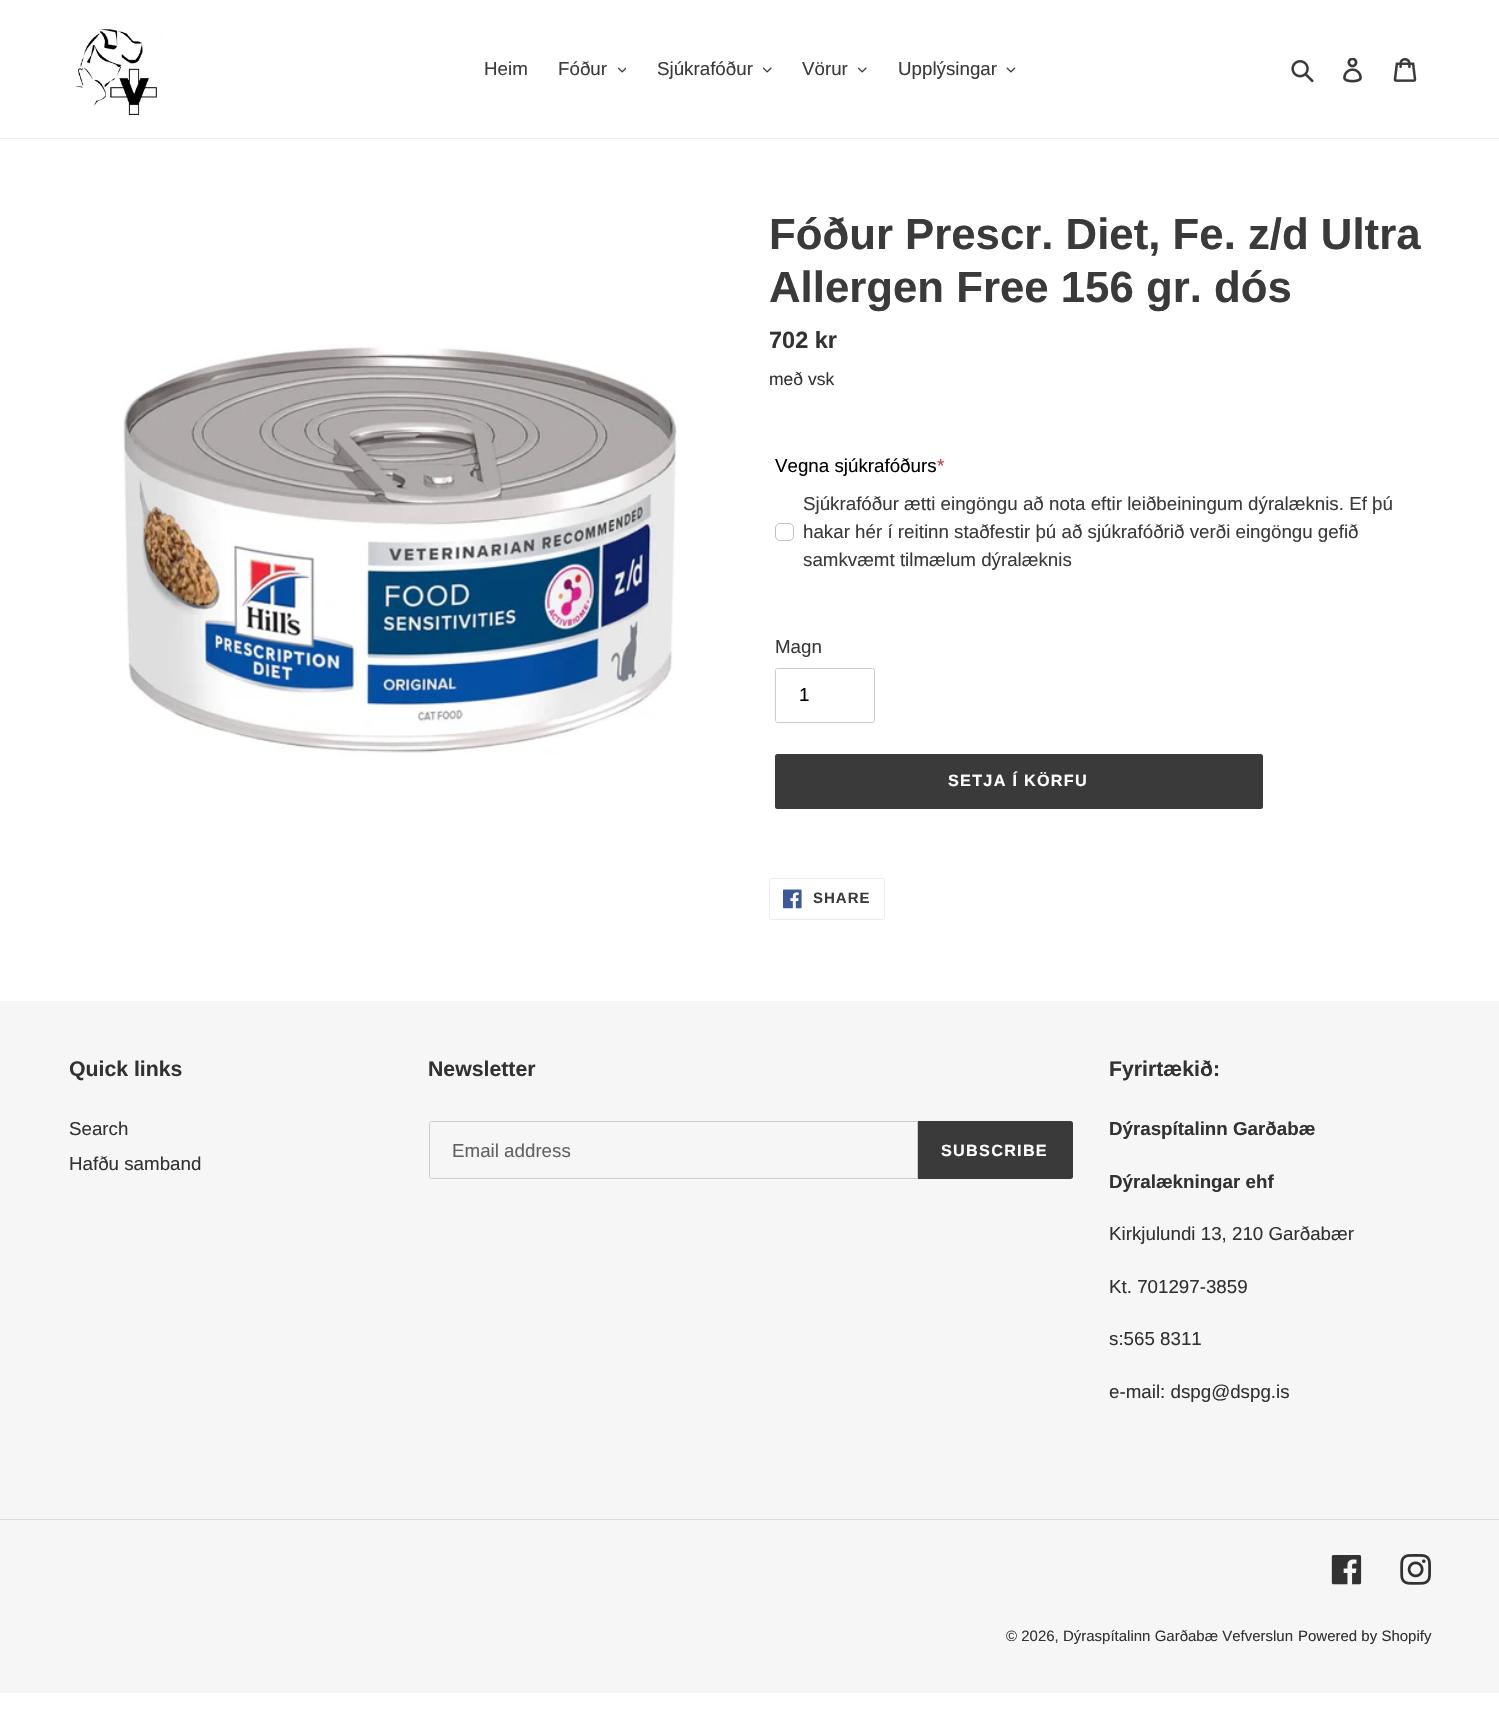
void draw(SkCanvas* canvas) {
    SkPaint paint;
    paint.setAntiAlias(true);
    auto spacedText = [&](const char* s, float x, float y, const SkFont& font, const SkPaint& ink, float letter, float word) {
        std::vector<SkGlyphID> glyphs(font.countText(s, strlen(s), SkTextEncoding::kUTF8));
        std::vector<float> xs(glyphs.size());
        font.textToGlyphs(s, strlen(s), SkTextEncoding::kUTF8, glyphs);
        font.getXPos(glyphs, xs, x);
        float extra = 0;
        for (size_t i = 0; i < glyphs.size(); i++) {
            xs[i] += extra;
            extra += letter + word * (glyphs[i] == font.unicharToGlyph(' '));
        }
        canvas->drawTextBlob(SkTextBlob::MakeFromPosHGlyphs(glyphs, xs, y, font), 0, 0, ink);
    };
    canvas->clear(0xFFFFFFFF);
    paint.setColor(0xFFEBEBEB);
    canvas->drawRect(SkRect::MakeXYWH(0, 138, 1499, 1), paint);
    canvas->drawImageRect(SkImages::DeferredFromEncodedData(SkData::MakeFromFileName("img1.png")), SkRect::MakeXYWH(75, 29, 87, 87), SkSamplingOptions());
    SkFont font1(fontMgr->matchFamilyStyle("Liberation Sans", SkFontStyle::Normal()), 18.75f);
    font1.setSubpixel(true);
    paint.setColor(0xFF3A3A3A);
    canvas->drawString("Heim", 484, 75, font1, paint);
    canvas->drawString("Fóður", 558, 75, font1, paint);
    canvas->drawImageRect(SkImages::DeferredFromEncodedData(SkData::MakeFromFileName("img2.png")), SkRect::MakeXYWH(618, 67, 8, 6), SkSamplingOptions());
    canvas->drawString("Sjúkrafóður", 657, 75, font1, paint);
    canvas->drawImageRect(SkImages::DeferredFromEncodedData(SkData::MakeFromFileName("img3.png")), SkRect::MakeXYWH(763, 67, 9, 6), SkSamplingOptions());
    canvas->drawString("Vörur", 802, 75, font1, paint);
    canvas->drawImageRect(SkImages::DeferredFromEncodedData(SkData::MakeFromFileName("img3.png")), SkRect::MakeXYWH(858, 67, 9, 6), SkSamplingOptions());
    canvas->drawString("Upplýsingar", 898, 75, font1, paint);
    canvas->drawImageRect(SkImages::DeferredFromEncodedData(SkData::MakeFromFileName("img4.png")), SkRect::MakeXYWH(1006, 67, 10, 6), SkSamplingOptions());
    canvas->drawImageRect(SkImages::DeferredFromEncodedData(SkData::MakeFromFileName("img5.png")), SkRect::MakeXYWH(1291, 60, 23, 23), SkSamplingOptions());
    canvas->drawImageRect(SkImages::DeferredFromEncodedData(SkData::MakeFromFileName("img6.png")), SkRect::MakeXYWH(1343, 58, 19, 25), SkSamplingOptions());
    canvas->drawImageRect(SkImages::DeferredFromEncodedData(SkData::MakeFromFileName("img7.png")), SkRect::MakeXYWH(1393, 58, 24, 24), SkSamplingOptions());
    canvas->drawImageRect(SkImages::DeferredFromEncodedData(SkData::MakeFromFileName("img8.png")), SkRect::MakeXYWH(123, 345, 554, 411), SkSamplingOptions());
    SkFont font2(fontMgr->matchFamilyStyle("Liberation Sans", SkFontStyle::Bold()), 43.75f);
    font2.setSubpixel(true);
    canvas->drawString("Fóður Prescr. Diet, Fe. z/d Ultra", 769, 249, font2, paint);
    canvas->drawString("Allergen Free 156 gr. dós", 769, 302, font2, paint);
    SkFont font3(fontMgr->matchFamilyStyle("Liberation Sans", SkFontStyle::Bold()), 23.5f);
    font3.setSubpixel(true);
    paint.setColor(0xFF333232);
    canvas->drawString("702 kr", 769, 348, font3, paint);
    SkFont font4(fontMgr->matchFamilyStyle("Liberation Sans", SkFontStyle::Normal()), 17.5f);
    font4.setSubpixel(true);
    canvas->drawString("með vsk", 769, 385, font4, paint);
    paint.setColor(0xFF000000);
    canvas->drawString("Vegna sjúkrafóðurs", 775, 472, font1, paint);
    paint.setColor(0xFFDC3545);
    canvas->drawString("*", 937, 472, font1, paint);
    paint.setStyle(SkPaint::kStroke_Style);
    paint.setStrokeWidth(1);
    paint.setColor(0xFFBFBFBF);
    canvas->drawRoundRect(SkRect::MakeXYWH(775.5f, 523.5f, 18, 17), 4.5f, 4.5f, paint);
    paint.setStyle(SkPaint::kFill_Style);
    paint.setColor(0xFF3A3A3A);
    canvas->drawString("Sjúkrafóður ætti eingöngu að nota eftir leiðbeiningum dýralæknis. Ef þú", 803, 510, font1, paint);
    canvas->drawString("hakar hér í reitinn staðfestir þú að sjúkrafóðrið verði eingöngu gefið", 803, 538, font1, paint);
    canvas->drawString("samkvæmt tilmælum dýralæknis", 803, 566, font1, paint);
    canvas->drawString("Magn", 775, 653, font1, paint);
    paint.setStyle(SkPaint::kStroke_Style);
    paint.setColor(0xFFCCCCCC);
    canvas->drawRoundRect(SkRect::MakeXYWH(775.5f, 668.5f, 99, 54), 2, 2, paint);
    paint.setStyle(SkPaint::kFill_Style);
    paint.setColor(0xFF000000);
    canvas->drawString("1", 799, 701, font1, paint);
    paint.setColor(0xFF3A3A3A);
    canvas->drawRoundRect(SkRect::MakeXYWH(775, 754, 488, 55), 2.5f, 2.5f, paint);
    SkFont font5(fontMgr->matchFamilyStyle("Liberation Sans", SkFontStyle::Bold()), 16.25f);
    font5.setSubpixel(true);
    paint.setColor(0xFFFFFFFF);
    spacedText("SETJA Í KÖRFU", 948, 786, font5, paint, 1.25f, 0);
    paint.setStyle(SkPaint::kStroke_Style);
    paint.setColor(0xFFEBEBEB);
    canvas->drawRoundRect(SkRect::MakeXYWH(769.5f, 878.5f, 115, 41), 2, 2, paint);
    canvas->drawImageRect(SkImages::DeferredFromEncodedData(SkData::MakeFromFileName("img9.png")), SkRect::MakeXYWH(783, 889, 19, 20), SkSamplingOptions());
    SkFont font6(fontMgr->matchFamilyStyle("Liberation Sans", SkFontStyle::Bold()), 15);
    font6.setSubpixel(true);
    paint.setStyle(SkPaint::kFill_Style);
    paint.setColor(0xFF3A3A3A);
    spacedText("SHARE", 813, 903, font6, paint, 1, 0);
    paint.setColor(0xFFF6F6F6);
    canvas->drawRect(SkRect::MakeXYWH(0, 1001, 1499, 692), paint);
    SkFont font7(fontMgr->matchFamilyStyle("Liberation Sans", SkFontStyle::Bold()), 21.25f);
    font7.setSubpixel(true);
    paint.setColor(0xFF333232);
    canvas->drawString("Quick links", 69, 1076, font7, paint);
    canvas->drawString("Search", 69, 1135, font1, paint);
    canvas->drawString("Hafðu samband", 69, 1170, font1, paint);
    canvas->drawString("Newsletter", 428, 1076, font7, paint);
    paint.setStyle(SkPaint::kStroke_Style);
    paint.setColor(0xFFCCCCCC);
    canvas->drawPath(SkPathBuilder().moveTo(431.5f, 1121.5f).lineTo(917.5f, 1121.5f).lineTo(917.5f, 1178.5f).lineTo(431.5f, 1178.5f).cubicTo(430.5f, 1178.5f, 429.5f, 1177.5f, 429.5f, 1176.5f).lineTo(429.5f, 1123.5f).cubicTo(429.5f, 1122.5f, 430.5f, 1121.5f, 431.5f, 1121.5f).close().detach(), paint);
    paint.setStyle(SkPaint::kFill_Style);
    paint.setColor(0xFF626262);
    canvas->drawString("Email address", 452, 1157, font1, paint);
    paint.setColor(0xFF3A3A3A);
    canvas->drawPath(SkPathBuilder().moveTo(918, 1121).lineTo(1070.5f, 1121).cubicTo(1072, 1121, 1073, 1122, 1073, 1123.5f).lineTo(1073, 1176.5f).cubicTo(1073, 1178, 1072, 1179, 1070.5f, 1179).lineTo(918, 1179).close().detach(), paint);
    paint.setColor(0xFFFFFFFF);
    spacedText("SUBSCRIBE", 941, 1156, font5, paint, 1.25f, 0);
    paint.setColor(0xFF333232);
    canvas->drawString("Fyrirtækið:", 1109, 1076, font7, paint);
    SkFont font8(fontMgr->matchFamilyStyle("Liberation Sans", SkFontStyle::Bold()), 18.75f);
    font8.setSubpixel(true);
    canvas->drawString("Dýraspítalinn Garðabæ", 1109, 1135, font8, paint);
    canvas->drawString("Dýralækningar ehf", 1109, 1188, font8, paint);
    canvas->drawString("Kirkjulundi 13, 210 Garðabær", 1109, 1240, font1, paint);
    canvas->drawString("Kt. 701297-3859", 1109, 1293, font1, paint);
    canvas->drawString("s:565 8311", 1109, 1345, font1, paint);
    canvas->drawString("e-mail: dspg@dspg.is", 1109, 1398, font1, paint);
    paint.setColor(0xFFDDDDDD);
    canvas->drawRect(SkRect::MakeXYWH(0, 1519, 1499, 1), paint);
    canvas->drawImageRect(SkImages::DeferredFromEncodedData(SkData::MakeFromFileName("img10.png")), SkRect::MakeXYWH(1331, 1555, 31, 30), SkSamplingOptions());
    canvas->drawImageRect(SkImages::DeferredFromEncodedData(SkData::MakeFromFileName("img11.png")), SkRect::MakeXYWH(1400, 1554, 31, 31), SkSamplingOptions());
    SkFont font9(fontMgr->matchFamilyStyle("Liberation Sans", SkFontStyle::Normal()), 15);
    font9.setSubpixel(true);
    paint.setColor(0xFF333232);
    canvas->drawString("© 2026, Dýraspítalinn Garðabæ Vefverslun", 1006, 1641, font9, paint);
    canvas->drawString("Powered by Shopify", 1298, 1641, font9, paint);
}
